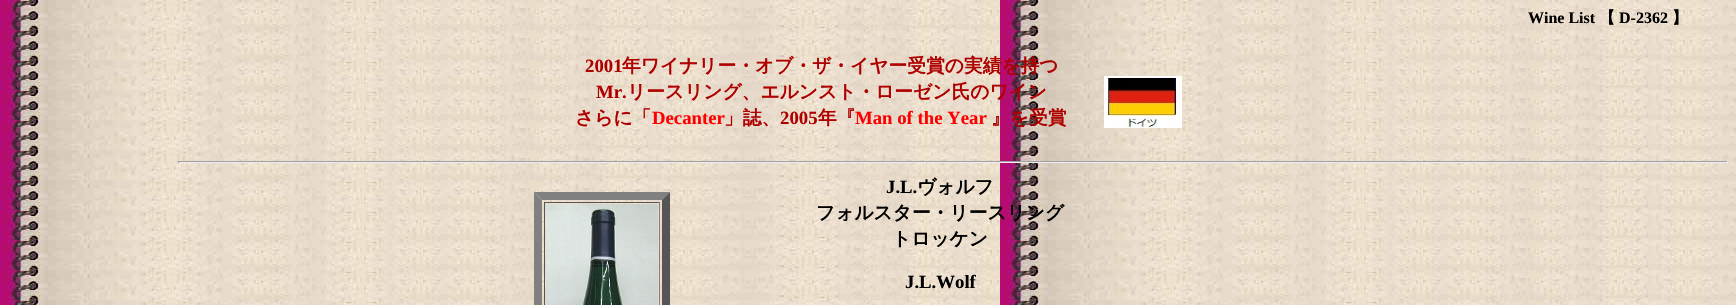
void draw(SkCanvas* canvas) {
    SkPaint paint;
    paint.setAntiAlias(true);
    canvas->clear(0xFFFFFFFF);
    canvas->drawImageRect(SkImages::DeferredFromEncodedData(SkData::MakeFromFileName("img1.png")), SkRect::MakeXYWH(0, 0, 1736, 305), SkSamplingOptions());
    SkFont font1(fontMgr->matchFamilyStyle("Liberation Serif", SkFontStyle::Bold()), 16);
    font1.setSubpixel(true);
    paint.setColor(0xFF000000);
    canvas->drawString("Wine List", 1528, 23, font1, paint);
    SkFont font2(fontMgr->matchFamilyStyle("WenQuanYi Zen Hei", SkFontStyle::Bold()), 16);
    font2.setSubpixel(true);
    canvas->drawString("【", 1599, 23, font2, paint);
    canvas->drawString("D-2362", 1619, 23, font1, paint);
    canvas->drawString("】", 1672, 23, font2, paint);
    SkFont font3(fontMgr->matchFamilyStyle("Liberation Serif", SkFontStyle::Bold()), 18.75f);
    font3.setSubpixel(true);
    paint.setColor(0xFFAF0000);
    canvas->drawString("2001", 585, 72, font3, paint);
    SkFont font4(fontMgr->matchFamilyStyle("WenQuanYi Zen Hei", SkFontStyle::Bold()), 18.75f);
    font4.setSubpixel(true);
    canvas->drawString("年ワイナリー・オブ・ザ・イヤー受賞の実績を持つ", 622, 72, font4, paint);
    canvas->drawString("Mr.", 596, 98, font3, paint);
    canvas->drawString("リースリング、エルンスト・ローゼン氏のワイン", 627, 98, font4, paint);
    canvas->drawString("さらに「", 575, 124, font4, paint);
    paint.setColor(0xFFFF0000);
    canvas->drawString("Decanter", 652, 124, font3, paint);
    paint.setColor(0xFFAF0000);
    canvas->drawString("」誌、", 724, 124, font4, paint);
    canvas->drawString("2005", 780, 124, font3, paint);
    canvas->drawString("年『", 818, 124, font4, paint);
    paint.setColor(0xFFFF0000);
    canvas->drawString("Man of the Year", 855, 124, font3, paint);
    paint.setColor(0xFFAF0000);
    canvas->drawString("』を受賞", 991, 124, font4, paint);
    canvas->drawImageRect(SkImages::DeferredFromEncodedData(SkData::MakeFromFileName("img2.png")), SkRect::MakeXYWH(1104, 76, 78, 52), SkSamplingOptions());
    paint.setColor(0xFF9F9F9F);
    canvas->drawRect(SkRect::MakeXYWH(178, 161, 1550, 1), paint);
    paint.setColor(0xFFEEEEEE);
    canvas->drawRect(SkRect::MakeXYWH(1727, 161, 1, 2), paint);
    canvas->drawRect(SkRect::MakeXYWH(178, 162, 1550, 1), paint);
    paint.setColor(0xFF9F9F9F);
    canvas->drawRect(SkRect::MakeXYWH(178, 161, 1, 2), paint);
    paint.setColor(0xFF808080);
    canvas->drawPath(SkPathBuilder().moveTo(534, 192).lineTo(670, 192).lineTo(662, 200).lineTo(542, 200).close().detach(), paint);
    paint.setColor(0xFF555555);
    canvas->drawPath(SkPathBuilder().moveTo(670, 192).lineTo(670, 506).lineTo(662, 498).lineTo(662, 200).close().detach(), paint);
    paint.setColor(0xFF808080);
    canvas->drawPath(SkPathBuilder().moveTo(534, 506).lineTo(534, 192).lineTo(542, 200).lineTo(542, 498).close().detach(), paint);
    paint.setColor(0xFF555555);
    canvas->drawRect(SkRect::MakeXYWH(544, 202, 116, 1), paint);
    paint.setColor(0xFF808080);
    canvas->drawRect(SkRect::MakeXYWH(659, 202, 1, 103), paint);
    paint.setColor(0xFF555555);
    canvas->drawRect(SkRect::MakeXYWH(544, 202, 1, 103), paint);
    canvas->drawImageRect(SkImages::DeferredFromEncodedData(SkData::MakeFromFileName("img3.png")), SkRect::MakeXYWH(546, 204, 112, 101), SkSamplingOptions());
    paint.setColor(0xFF000000);
    canvas->drawString("J.L.", 886, 193, font3, paint);
    canvas->drawString("ヴォルフ", 917, 193, font4, paint);
    canvas->drawString("フォルスター・リースリング", 816, 219, font4, paint);
    canvas->drawString("トロッケン", 892, 245, font4, paint);
    canvas->drawString("J.L.Wolf", 905, 288, font3, paint);
}
